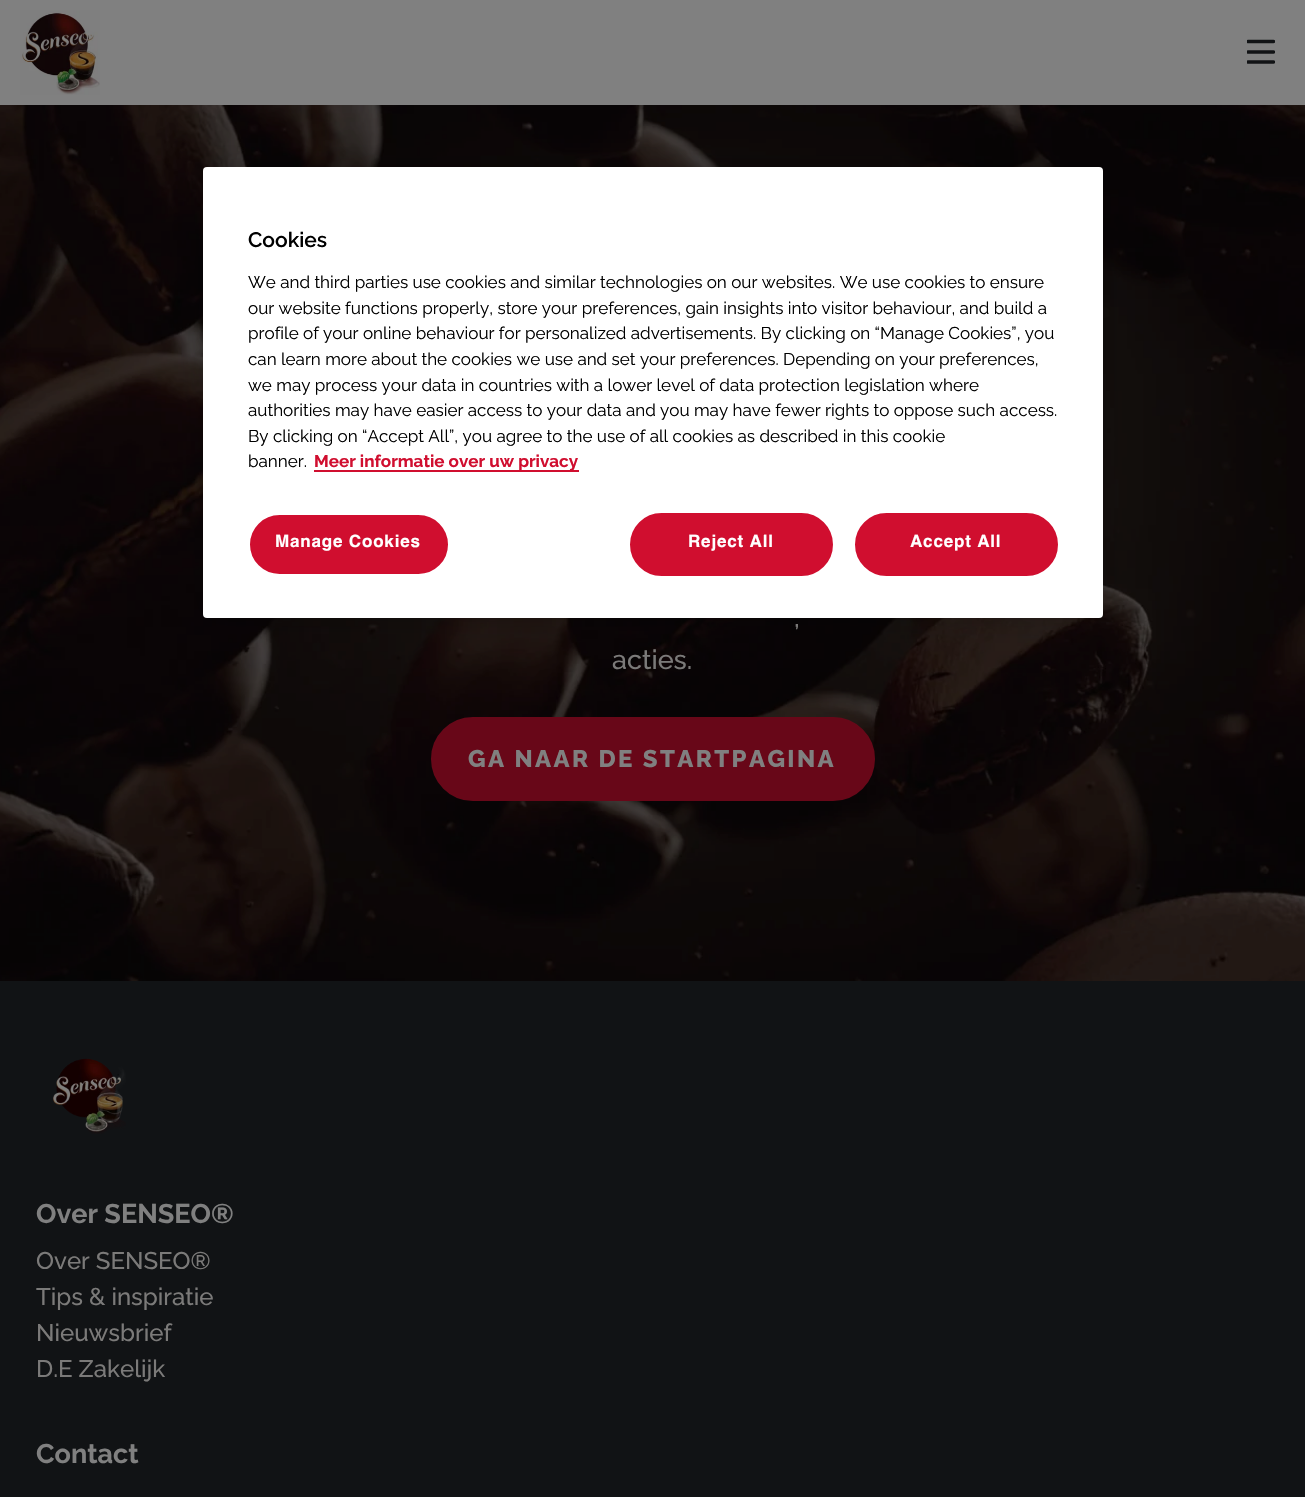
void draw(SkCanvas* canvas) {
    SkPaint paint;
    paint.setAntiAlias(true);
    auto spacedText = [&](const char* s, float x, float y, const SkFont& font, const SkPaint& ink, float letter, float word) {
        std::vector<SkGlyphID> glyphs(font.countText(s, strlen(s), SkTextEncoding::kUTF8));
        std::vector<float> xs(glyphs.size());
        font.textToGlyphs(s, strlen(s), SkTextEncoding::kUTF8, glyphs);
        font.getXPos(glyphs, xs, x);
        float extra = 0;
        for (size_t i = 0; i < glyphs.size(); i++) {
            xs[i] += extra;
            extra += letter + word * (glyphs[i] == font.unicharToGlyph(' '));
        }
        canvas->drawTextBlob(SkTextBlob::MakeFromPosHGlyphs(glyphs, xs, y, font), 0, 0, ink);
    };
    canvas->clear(0xFF808080);
    canvas->drawImageRect(SkImages::DeferredFromEncodedData(SkData::MakeFromFileName("img2.png")), SkRect::MakeXYWH(0, 105, 1305, 876), SkSamplingOptions());
    paint.setColor(0x33000000);
    paint.setMaskFilter(SkMaskFilter::MakeBlur(kNormal_SkBlurStyle, 13.5f));
    canvas->drawRoundRect(SkRect::MakeXYWH(203, 167, 900, 451), 4, 4, paint);
    paint.setMaskFilter(nullptr);
    paint.setColor(0xFFFFFFFF);
    canvas->drawRoundRect(SkRect::MakeXYWH(203, 167, 900, 451), 4, 4, paint);
    SkFont font1(fontMgr->matchFamilyStyle("Raleway", SkFontStyle(600, SkFontStyle::kNormal_Width, SkFontStyle::kUpright_Slant)), 21);
    font1.setSubpixel(true);
    paint.setColor(0xFF000000);
    canvas->drawString("Cookies", 248, 247, font1, paint);
    SkFont font2(fontMgr->matchFamilyStyle("Raleway", SkFontStyle::Normal()), 17.05f);
    font2.setSubpixel(true);
    canvas->drawString("We and third parties use cookies and similar technologies on our websites. We use cookies to ensure", 248, 288, font2, paint);
    canvas->drawString("our website functions properly, store your preferences, gain insights into visitor behaviour, and build a", 248, 314, font2, paint);
    canvas->drawString("profile of your online behaviour for personalized advertisements. By clicking on “Manage Cookies”, you", 248, 339, font2, paint);
    canvas->drawString("can learn more about the cookies we use and set your preferences. Depending on your preferences,", 248, 365, font2, paint);
    canvas->drawString("we may process your data in countries with a lower level of data protection legislation where", 248, 391, font2, paint);
    canvas->drawString("authorities may have easier access to your data and you may have fewer rights to oppose such access.", 248, 416, font2, paint);
    canvas->drawString("By clicking on “Accept All”, you agree to the use of all cookies as described in this cookie", 248, 442, font2, paint);
    canvas->drawString("banner.", 248, 467, font2, paint);
    paint.setColor(0xFFD00E2F);
    canvas->drawRect(SkRect::MakeXYWH(314, 470, 265, 2), paint);
    SkFont font3(fontMgr->matchFamilyStyle("Raleway", SkFontStyle::Bold()), 17.05f);
    font3.setSubpixel(true);
    canvas->drawString("Meer informatie over uw privacy", 314, 467, font3, paint);
    canvas->drawRoundRect(SkRect::MakeXYWH(249, 514, 200, 61), 30.5f, 30.5f, paint);
    paint.setStyle(SkPaint::kStroke_Style);
    paint.setStrokeWidth(2);
    paint.setColor(0xFFFFFFFF);
    canvas->drawRoundRect(SkRect::MakeXYWH(249, 514, 200, 61), 30.5f, 30.5f, paint);
    SkFont font4(fontMgr->matchFamilyStyle("Helvetica", SkFontStyle::Bold()), 17.05f);
    font4.setSubpixel(true);
    paint.setStyle(SkPaint::kFill_Style);
    spacedText("Manage Cookies", 275, 547, font4, paint, 0.8f, 0);
    paint.setColor(0xFFD00E2F);
    canvas->drawRoundRect(SkRect::MakeXYWH(631, 514, 201, 61), 30.5f, 30.5f, paint);
    paint.setStyle(SkPaint::kStroke_Style);
    canvas->drawRoundRect(SkRect::MakeXYWH(631, 514, 201, 61), 30.5f, 30.5f, paint);
    paint.setStyle(SkPaint::kFill_Style);
    paint.setColor(0xFFFFFFFF);
    spacedText("Reject All", 688, 547, font4, paint, 0.8f, 0);
    paint.setColor(0xFFD00E2F);
    canvas->drawRoundRect(SkRect::MakeXYWH(856, 514, 201, 61), 30.5f, 30.5f, paint);
    paint.setStyle(SkPaint::kStroke_Style);
    canvas->drawRoundRect(SkRect::MakeXYWH(856, 514, 201, 61), 30.5f, 30.5f, paint);
    paint.setStyle(SkPaint::kFill_Style);
    paint.setColor(0xFFFFFFFF);
    spacedText("Accept All", 910, 547, font4, paint, 0.8f, 0);
    canvas->drawImageRect(SkImages::DeferredFromEncodedData(SkData::MakeFromFileName("img1.png")), SkRect::MakeXYWH(20, 10, 80, 85), SkSamplingOptions());
    canvas->save();
    canvas->clipRect(SkRect::MakeXYWH(1247, 38, 28, 28));
    paint.setStyle(SkPaint::kStroke_Style);
    paint.setStrokeWidth(3.4f);
    paint.setStrokeCap(SkPaint::kRound_Cap);
    paint.setStrokeJoin(SkPaint::kRound_Join);
    paint.setColor(0xFF111315);
    canvas->drawPath(SkPathBuilder().moveTo(1248, 41.5f).lineTo(1273.5f, 41.5f).moveTo(1248, 52).lineTo(1273.5f, 52).moveTo(1248, 62).lineTo(1273.5f, 62).detach(), paint);
    canvas->restore();
    SkFont font5(fontMgr->matchFamilyStyle("Raleway", SkFontStyle(500, SkFontStyle::kNormal_Width, SkFontStyle::kUpright_Slant)), 27);
    font5.setSubpixel(true);
    paint.setStyle(SkPaint::kFill_Style);
    paint.setColor(0xFF7B7A79);
    canvas->drawString(",", 794, 627, font5, paint);
    canvas->drawString("acties.", 612, 669, font5, paint);
    paint.setColor(0xFF680718);
    canvas->drawRoundRect(SkRect::MakeXYWH(432, 718, 442, 82), 41, 41, paint);
    paint.setStyle(SkPaint::kStroke_Style);
    paint.setStrokeWidth(2);
    paint.setStrokeCap(SkPaint::kButt_Cap);
    paint.setStrokeJoin(SkPaint::kMiter_Join);
    canvas->drawRoundRect(SkRect::MakeXYWH(432, 718, 442, 82), 41, 41, paint);
    SkFont font6(fontMgr->matchFamilyStyle("Raleway", SkFontStyle(800, SkFontStyle::kNormal_Width, SkFontStyle::kUpright_Slant)), 24);
    font6.setSubpixel(true);
    paint.setStyle(SkPaint::kFill_Style);
    paint.setColor(0xFF808080);
    spacedText("GA NAAR DE STARTPAGINA", 468, 767, font6, paint, 2.4f, 0);
    paint.setColor(0xFF111315);
    canvas->drawRect(SkRect::MakeXYWH(0, 981, 1305, 516), paint);
    canvas->drawImageRect(SkImages::DeferredFromEncodedData(SkData::MakeFromFileName("img3.png")), SkRect::MakeXYWH(53, 1058, 73, 76), SkSamplingOptions());
    SkFont font7(fontMgr->matchFamilyStyle("Raleway", SkFontStyle::Bold()), 27);
    font7.setSubpixel(true);
    paint.setColor(0xFF808080);
    canvas->drawString("Over SENSEO®", 36, 1223, font7, paint);
    SkFont font8(fontMgr->matchFamilyStyle("Raleway", SkFontStyle(500, SkFontStyle::kNormal_Width, SkFontStyle::kUpright_Slant)), 24);
    font8.setSubpixel(true);
    paint.setColor(0xFF7B7A79);
    canvas->drawString("Over SENSEO®", 36, 1269, font8, paint);
    canvas->drawString("Tips & inspiratie", 36, 1305, font8, paint);
    canvas->drawString("Nieuwsbrief", 36, 1341, font8, paint);
    canvas->drawString("D.E Zakelijk", 36, 1377, font8, paint);
    paint.setColor(0xFF808080);
    canvas->drawString("Contact", 36, 1463, font7, paint);
}
